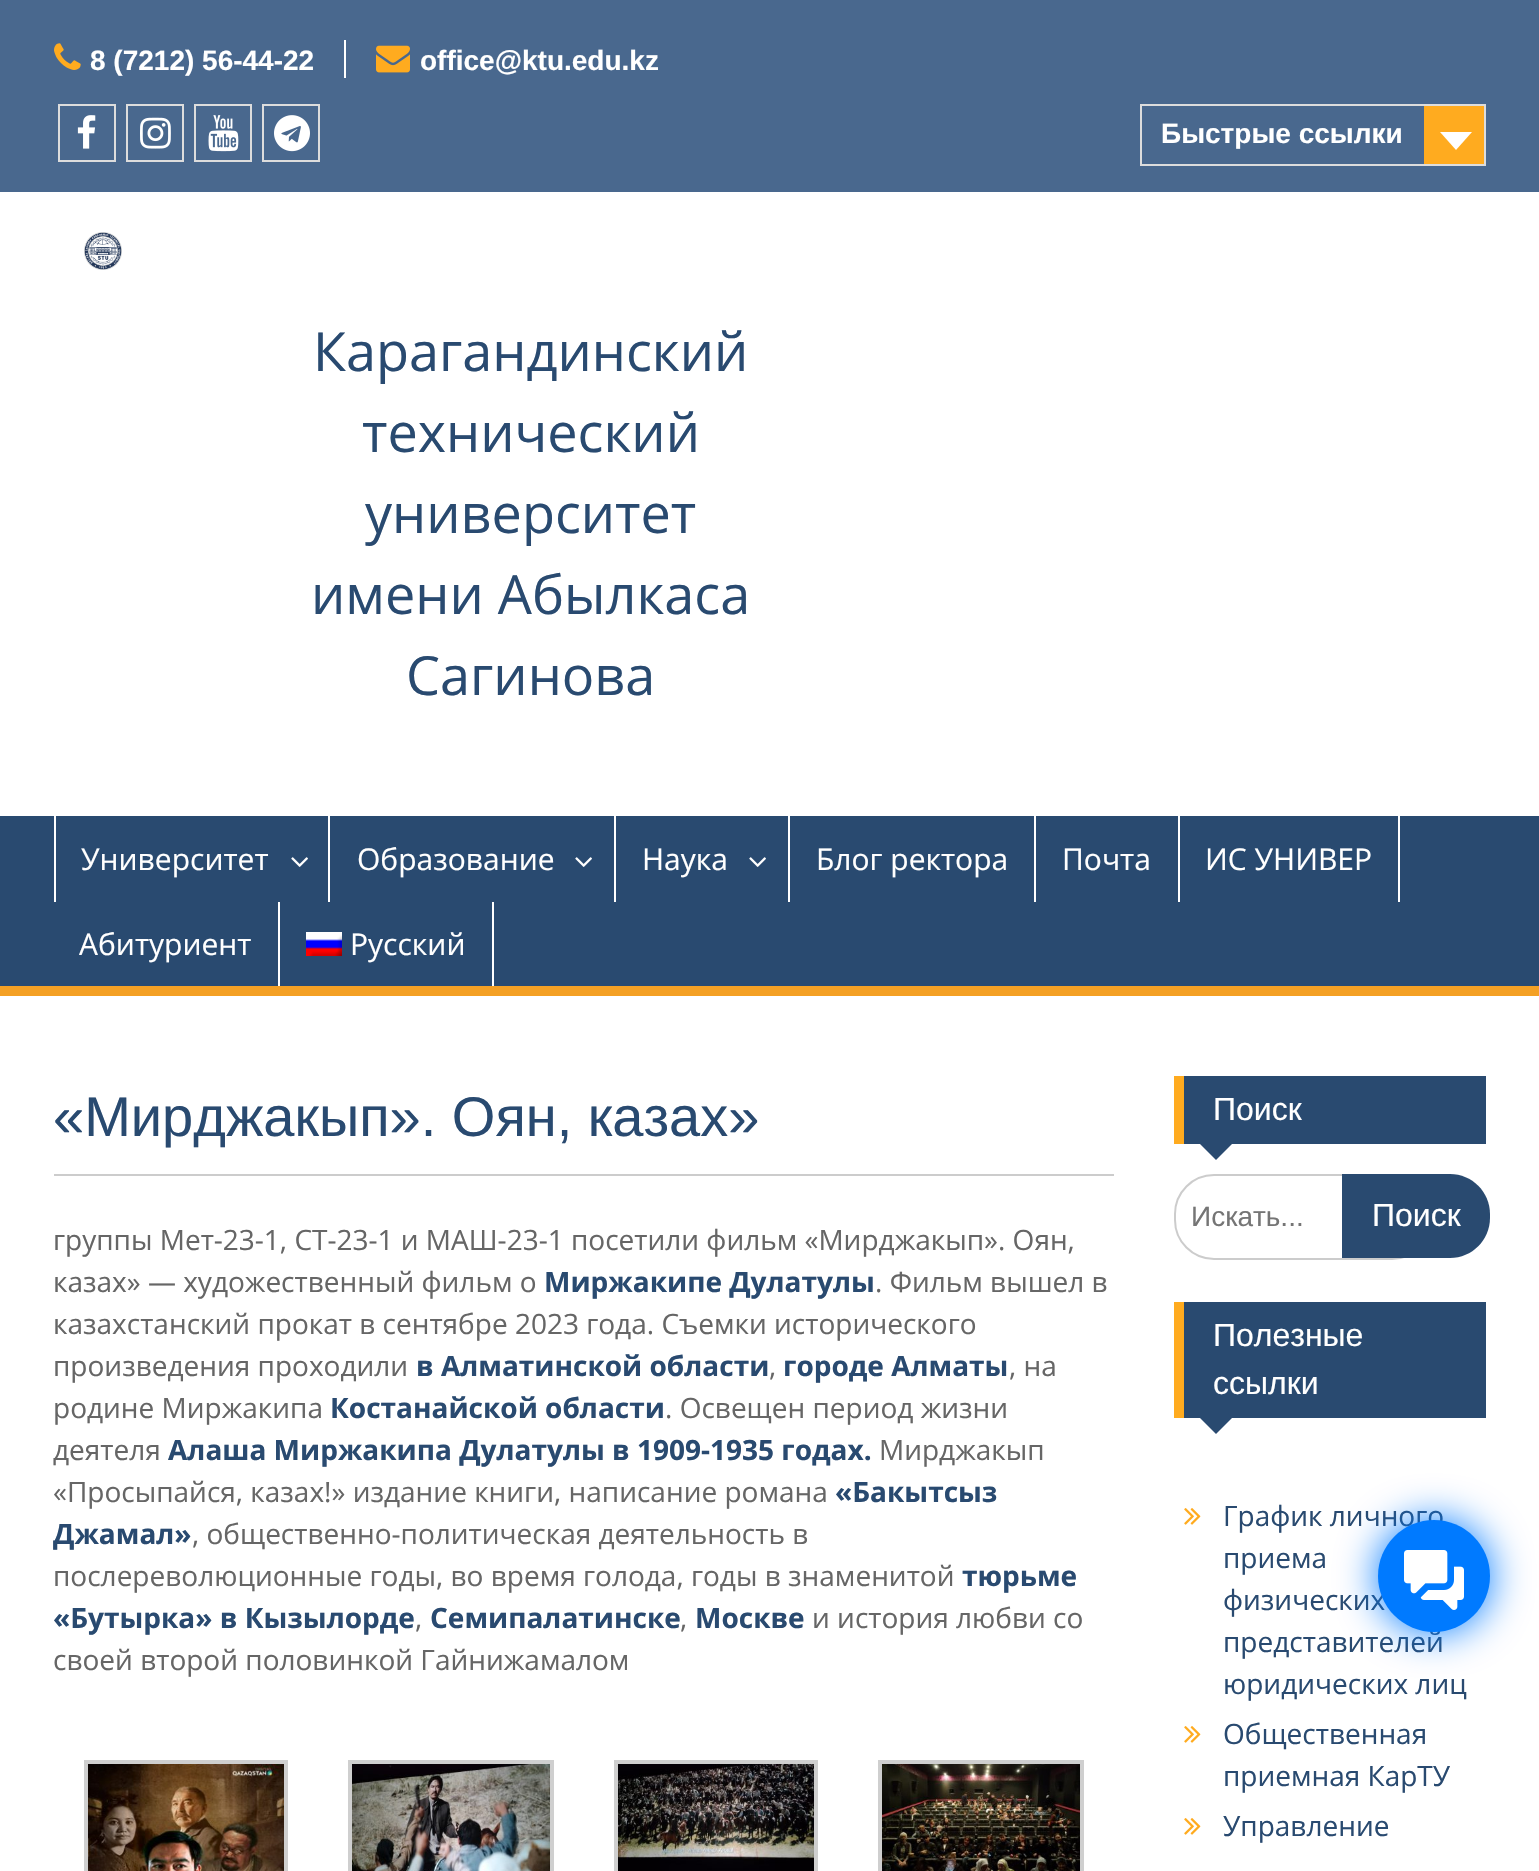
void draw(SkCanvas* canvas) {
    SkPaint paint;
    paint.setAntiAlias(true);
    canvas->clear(0xFFFFFFFF);
    paint.setColor(0xFF49688E);
    canvas->drawRect(SkRect::MakeXYWH(0, 0, 1539, 192), paint);
    canvas->drawImageRect(SkImages::DeferredFromEncodedData(SkData::MakeFromFileName("img1.png")), SkRect::MakeXYWH(54, 43, 27, 27), SkSamplingOptions());
    SkFont font1(fontMgr->matchFamilyStyle("Liberation Sans", SkFontStyle::Bold()), 28);
    font1.setSubpixel(true);
    paint.setColor(0xFFFFFFFF);
    canvas->drawString("8 (7212) 56-44-22", 90, 70, font1, paint);
    canvas->drawRect(SkRect::MakeXYWH(344, 40, 2, 38), paint);
    canvas->drawImageRect(SkImages::DeferredFromEncodedData(SkData::MakeFromFileName("img2.png")), SkRect::MakeXYWH(376, 45, 34, 28), SkSamplingOptions());
    canvas->drawString("office@ktu.edu.kz", 420, 70, font1, paint);
    paint.setStyle(SkPaint::kStroke_Style);
    paint.setStrokeWidth(2);
    paint.setColor(0xFFDDDDDD);
    canvas->drawRect(SkRect::MakeXYWH(59, 105, 56, 56), paint);
    canvas->drawImageRect(SkImages::DeferredFromEncodedData(SkData::MakeFromFileName("img3.png")), SkRect::MakeXYWH(77, 115, 19, 34), SkSamplingOptions());
    canvas->drawRect(SkRect::MakeXYWH(127, 105, 56, 56), paint);
    canvas->drawImageRect(SkImages::DeferredFromEncodedData(SkData::MakeFromFileName("img4.png")), SkRect::MakeXYWH(140, 117, 31, 32), SkSamplingOptions());
    canvas->drawRect(SkRect::MakeXYWH(195, 105, 56, 56), paint);
    canvas->drawImageRect(SkImages::DeferredFromEncodedData(SkData::MakeFromFileName("img5.png")), SkRect::MakeXYWH(208, 115, 31, 37), SkSamplingOptions());
    canvas->drawRect(SkRect::MakeXYWH(263, 105, 56, 56), paint);
    canvas->drawImageRect(SkImages::DeferredFromEncodedData(SkData::MakeFromFileName("img6.png")), SkRect::MakeXYWH(274, 115, 36, 37), SkSamplingOptions());
    canvas->drawRect(SkRect::MakeXYWH(1141, 105, 344, 60), paint);
    paint.setStyle(SkPaint::kFill_Style);
    paint.setColor(0xFFFFFFFF);
    canvas->drawString("Быстрые ссылки", 1161, 143, font1, paint);
    paint.setColor(0xFFFFAB1F);
    canvas->drawRect(SkRect::MakeXYWH(1424, 106, 60, 58), paint);
    paint.setColor(0xFFFFFFFF);
    canvas->drawPath(SkPathBuilder().moveTo(1440, 132).lineTo(1472, 132).lineTo(1456, 150).close().detach(), paint);
    canvas->drawImageRect(SkImages::DeferredFromEncodedData(SkData::MakeFromFileName("img7.png")), SkRect::MakeXYWH(84, 232, 38, 38), SkSamplingOptions());
    SkFont font2(fontMgr->matchFamilyStyle("Open Sans", SkFontStyle::Normal()), 54);
    font2.setSubpixel(true);
    paint.setColor(0xFF294A70);
    canvas->drawString("Карагандинский", 313, 371, font2, paint);
    canvas->drawString("технический", 362, 452, font2, paint);
    canvas->drawString("университет", 365, 533, font2, paint);
    canvas->drawString("имени Абылкаса", 311, 614, font2, paint);
    canvas->drawString("Сагинова", 406, 695, font2, paint);
    canvas->drawRect(SkRect::MakeXYWH(0, 816, 1539, 170), paint);
    paint.setColor(0xFFF4A024);
    canvas->drawRect(SkRect::MakeXYWH(0, 986, 1539, 10), paint);
    paint.setColor(0xFFFFFFFF);
    canvas->drawRect(SkRect::MakeXYWH(328, 816, 2, 86), paint);
    canvas->drawRect(SkRect::MakeXYWH(54, 816, 2, 86), paint);
    SkFont font3(fontMgr->matchFamilyStyle("Open Sans", SkFontStyle::Normal()), 30);
    font3.setSubpixel(true);
    canvas->drawString("Университет", 81, 870, font3, paint);
    canvas->drawImageRect(SkImages::DeferredFromEncodedData(SkData::MakeFromFileName("img8.png")), SkRect::MakeXYWH(291, 857, 17, 10), SkSamplingOptions());
    canvas->drawRect(SkRect::MakeXYWH(614, 816, 2, 86), paint);
    canvas->drawString("Образование", 357, 870, font3, paint);
    canvas->drawImageRect(SkImages::DeferredFromEncodedData(SkData::MakeFromFileName("img8.png")), SkRect::MakeXYWH(575, 857, 17, 10), SkSamplingOptions());
    canvas->drawRect(SkRect::MakeXYWH(788, 816, 2, 86), paint);
    canvas->drawString("Наука", 642, 870, font3, paint);
    canvas->drawImageRect(SkImages::DeferredFromEncodedData(SkData::MakeFromFileName("img8.png")), SkRect::MakeXYWH(749, 857, 17, 10), SkSamplingOptions());
    canvas->drawRect(SkRect::MakeXYWH(1034, 816, 2, 86), paint);
    canvas->drawString("Блог ректора", 816, 870, font3, paint);
    canvas->drawRect(SkRect::MakeXYWH(1178, 816, 2, 86), paint);
    canvas->drawString("Почта", 1062, 870, font3, paint);
    canvas->drawRect(SkRect::MakeXYWH(1398, 816, 2, 86), paint);
    canvas->drawString("ИС УНИВЕР", 1205, 870, font3, paint);
    canvas->drawRect(SkRect::MakeXYWH(278, 902, 2, 84), paint);
    canvas->drawString("Абитуриент", 79, 955, font3, paint);
    canvas->drawRect(SkRect::MakeXYWH(492, 902, 2, 84), paint);
    canvas->drawImageRect(SkImages::DeferredFromEncodedData(SkData::MakeFromFileName("img9.png")), SkRect::MakeXYWH(306, 932, 36, 24), SkSamplingOptions());
    canvas->drawString("Русский", 350, 955, font3, paint);
    SkFont font4(fontMgr->matchFamilyStyle("Liberation Sans", SkFontStyle::Normal()), 56);
    font4.setSubpixel(true);
    paint.setColor(0xFF294A70);
    canvas->drawString("«Мирджакып». Оян, казах»", 53, 1136, font4, paint);
    paint.setColor(0xFFCCCCCC);
    canvas->drawRect(SkRect::MakeXYWH(54, 1174, 1060, 2), paint);
    SkFont font5(fontMgr->matchFamilyStyle("Open Sans", SkFontStyle::Normal()), 28);
    font5.setSubpixel(true);
    paint.setColor(0xFF666666);
    canvas->drawString("группы Мет-23-1, СТ-23-1 и МАШ-23-1 посетили фильм «Мирджакып». Оян,", 53, 1250, font5, paint);
    canvas->drawString("казах» — художественный фильм о", 53, 1292, font5, paint);
    SkFont font6(fontMgr->matchFamilyStyle("Open Sans", SkFontStyle::Bold()), 28);
    font6.setSubpixel(true);
    paint.setColor(0xFF294A70);
    canvas->drawString("Миржакипе Дулатулы", 544, 1292, font6, paint);
    paint.setColor(0xFF666666);
    canvas->drawString(". Фильм вышел в", 875, 1292, font5, paint);
    canvas->drawString("казахстанский прокат в сентябре 2023 года. Съемки исторического", 53, 1334, font5, paint);
    canvas->drawString("произведения проходили", 53, 1376, font5, paint);
    paint.setColor(0xFF294A70);
    canvas->drawString("в Алматинской области", 416, 1376, font6, paint);
    paint.setColor(0xFF666666);
    canvas->drawString(",", 769, 1376, font5, paint);
    paint.setColor(0xFF294A70);
    canvas->drawString("городе Алматы", 783, 1376, font6, paint);
    paint.setColor(0xFF666666);
    canvas->drawString(", на", 1009, 1376, font5, paint);
    canvas->drawString("родине Миржакипа", 53, 1418, font5, paint);
    paint.setColor(0xFF294A70);
    canvas->drawString("Костанайской области", 330, 1418, font6, paint);
    paint.setColor(0xFF666666);
    canvas->drawString(". Освещен период жизни", 665, 1418, font5, paint);
    canvas->drawString("деятеля", 53, 1460, font5, paint);
    paint.setColor(0xFF294A70);
    canvas->drawString("Алаша Миржакипа Дулатулы в 1909-1935 годах.", 168, 1460, font6, paint);
    paint.setColor(0xFF666666);
    canvas->drawString("Мирджакып", 879, 1460, font5, paint);
    canvas->drawString("«Просыпайся, казах!» издание книги, написание романа", 53, 1502, font5, paint);
    paint.setColor(0xFF294A70);
    canvas->drawString("«Бакытсыз", 835, 1502, font6, paint);
    canvas->drawString("Джамал»", 53, 1544, font6, paint);
    paint.setColor(0xFF666666);
    canvas->drawString(", общественно-политическая деятельность в", 192, 1544, font5, paint);
    canvas->drawString("послереволюционные годы, во время голода, годы в знаменитой", 53, 1586, font5, paint);
    paint.setColor(0xFF294A70);
    canvas->drawString("тюрьме", 962, 1586, font6, paint);
    canvas->drawString("«Бутырка» в Кызылорде", 53, 1628, font6, paint);
    paint.setColor(0xFF666666);
    canvas->drawString(",", 415, 1628, font5, paint);
    paint.setColor(0xFF294A70);
    canvas->drawString("Семипалатинске", 430, 1628, font6, paint);
    paint.setColor(0xFF666666);
    canvas->drawString(",", 680, 1628, font5, paint);
    paint.setColor(0xFF294A70);
    canvas->drawString("Москве", 695, 1628, font6, paint);
    paint.setColor(0xFF666666);
    canvas->drawString("и история любви со", 812, 1628, font5, paint);
    canvas->drawString("своей второй половинкой Гайнижамалом", 53, 1670, font5, paint);
    paint.setStyle(SkPaint::kStroke_Style);
    paint.setStrokeWidth(4);
    paint.setColor(0xFFCFCFCF);
    canvas->drawRect(SkRect::MakeXYWH(86, 1762, 200, 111), paint);
    canvas->drawImageRect(SkImages::DeferredFromEncodedData(SkData::MakeFromFileName("img10.png")), SkRect::MakeXYWH(88, 1764, 196, 107), SkSamplingOptions());
    canvas->drawRect(SkRect::MakeXYWH(350, 1762, 202, 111), paint);
    canvas->drawImageRect(SkImages::DeferredFromEncodedData(SkData::MakeFromFileName("img11.png")), SkRect::MakeXYWH(352, 1764, 198, 107), SkSamplingOptions());
    canvas->drawRect(SkRect::MakeXYWH(616, 1762, 200, 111), paint);
    canvas->drawImageRect(SkImages::DeferredFromEncodedData(SkData::MakeFromFileName("img12.png")), SkRect::MakeXYWH(618, 1764, 196, 107), SkSamplingOptions());
    canvas->drawRect(SkRect::MakeXYWH(880, 1762, 202, 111), paint);
    canvas->drawImageRect(SkImages::DeferredFromEncodedData(SkData::MakeFromFileName("img13.png")), SkRect::MakeXYWH(882, 1764, 198, 107), SkSamplingOptions());
    paint.setStyle(SkPaint::kFill_Style);
    paint.setColor(0xFF294A70);
    canvas->drawRect(SkRect::MakeXYWH(1184, 1076, 302, 68), paint);
    paint.setColor(0xFFFFAB1F);
    canvas->drawRect(SkRect::MakeXYWH(1174, 1076, 10, 68), paint);
    SkFont font7(fontMgr->matchFamilyStyle("Liberation Sans", SkFontStyle::Normal()), 32);
    font7.setSubpixel(true);
    paint.setColor(0xFFFFFFFF);
    canvas->drawString("Поиск", 1213, 1120, font7, paint);
    paint.setColor(0xFF294A70);
    canvas->drawPath(SkPathBuilder().moveTo(1198, 1142).lineTo(1234, 1142).lineTo(1216, 1160).close().detach(), paint);
    paint.setStyle(SkPaint::kStroke_Style);
    paint.setStrokeWidth(2);
    paint.setColor(0xFFCCCCCC);
    canvas->drawRoundRect(SkRect::MakeXYWH(1175, 1175, 256, 84), 39, 39, paint);
    SkFont font8(fontMgr->matchFamilyStyle("Liberation Sans", SkFontStyle::Normal()), 28);
    font8.setSubpixel(true);
    paint.setStyle(SkPaint::kFill_Style);
    paint.setColor(0xFF757575);
    canvas->drawString("Искать...", 1191, 1226, font8, paint);
    paint.setColor(0xFF294A70);
    canvas->drawPath(SkPathBuilder().moveTo(1342, 1174).lineTo(1450, 1174).cubicTo(1472, 1174, 1490, 1192, 1490, 1214).lineTo(1490, 1218).cubicTo(1490, 1240, 1472, 1258, 1450, 1258).lineTo(1342, 1258).close().detach(), paint);
    paint.setColor(0xFFFFFFFF);
    canvas->drawString("Поиск", 1372, 1226, font7, paint);
    paint.setColor(0xFF294A70);
    canvas->drawRect(SkRect::MakeXYWH(1184, 1302, 302, 116), paint);
    paint.setColor(0xFFFFAB1F);
    canvas->drawRect(SkRect::MakeXYWH(1174, 1302, 10, 116), paint);
    paint.setColor(0xFFFFFFFF);
    canvas->drawString("Полезные", 1213, 1346, font7, paint);
    canvas->drawString("ссылки", 1213, 1394, font7, paint);
    paint.setColor(0xFF294A70);
    canvas->drawPath(SkPathBuilder().moveTo(1198, 1416).lineTo(1234, 1416).lineTo(1216, 1434).close().detach(), paint);
    canvas->drawImageRect(SkImages::DeferredFromEncodedData(SkData::MakeFromFileName("img14.png")), SkRect::MakeXYWH(1184, 1508, 17, 17), SkSamplingOptions());
    canvas->drawString("График личного", 1223, 1526, font5, paint);
    canvas->drawString("приема", 1223, 1568, font5, paint);
    canvas->drawString("физических", 1223, 1610, font5, paint);
    canvas->drawString("представителей", 1223, 1652, font5, paint);
    canvas->drawString("юридических лиц", 1223, 1694, font5, paint);
    canvas->drawImageRect(SkImages::DeferredFromEncodedData(SkData::MakeFromFileName("img14.png")), SkRect::MakeXYWH(1184, 1726, 17, 17), SkSamplingOptions());
    canvas->drawString("Общественная", 1223, 1744, font5, paint);
    canvas->drawString("приемная КарТУ", 1223, 1786, font5, paint);
    canvas->drawImageRect(SkImages::DeferredFromEncodedData(SkData::MakeFromFileName("img14.png")), SkRect::MakeXYWH(1184, 1818, 17, 17), SkSamplingOptions());
    canvas->drawString("Управление", 1223, 1836, font5, paint);
    paint.setColor(0xFF007AFF);
    paint.setMaskFilter(SkMaskFilter::MakeBlur(kNormal_SkBlurStyle, 20));
    canvas->drawRoundRect(SkRect::MakeXYWH(1378, 1520, 112, 112), 56, 56, paint);
    paint.setMaskFilter(nullptr);
    canvas->drawCircle(1434, 1576, 56, paint);
    canvas->drawImageRect(SkImages::DeferredFromEncodedData(SkData::MakeFromFileName("img15.png")), SkRect::MakeXYWH(1404, 1550, 60, 60), SkSamplingOptions());
}
